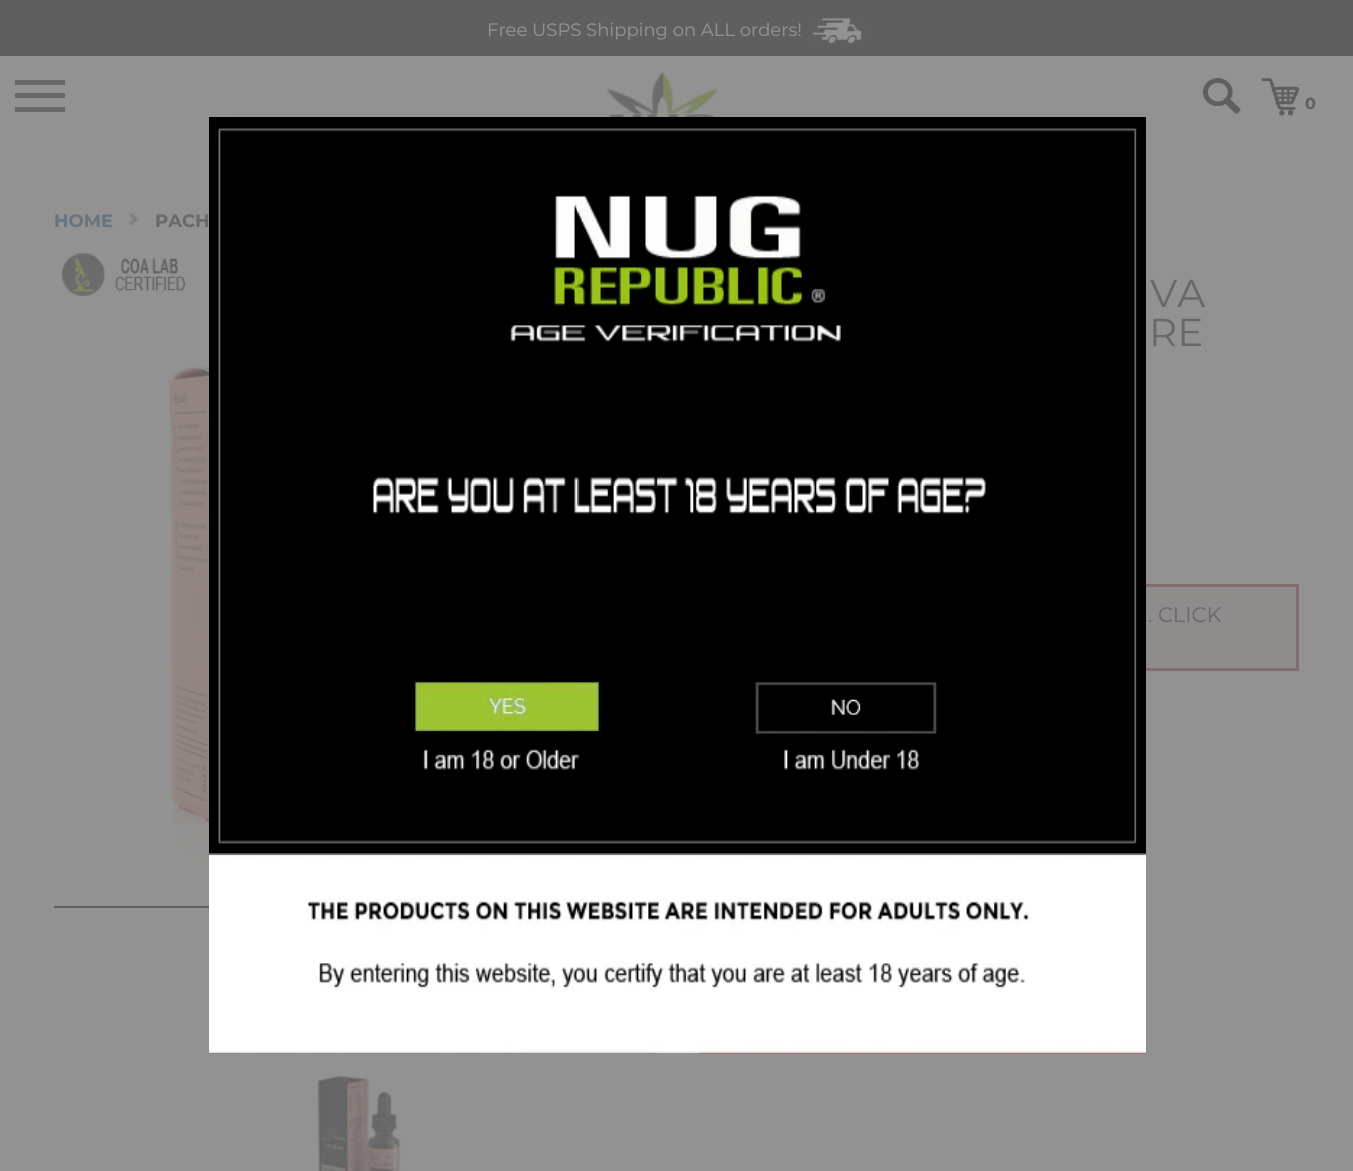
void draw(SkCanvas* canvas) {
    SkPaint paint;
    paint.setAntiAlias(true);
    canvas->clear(0xFF929292);
    paint.setColor(0xFF5F5F5F);
    canvas->drawRect(SkRect::MakeXYWH(0, 0, 1353, 56), paint);
    SkFont font1(fontMgr->matchFamilyStyle("Montserrat", SkFontStyle::Normal()), 18);
    font1.setSubpixel(true);
    paint.setColor(0xFF929292);
    canvas->drawString("Free USPS Shipping on ALL orders!", 487, 36, font1, paint);
    canvas->drawImageRect(SkImages::DeferredFromEncodedData(SkData::MakeFromFileName("img1.png")), SkRect::MakeXYWH(809, 18, 57, 26), SkSamplingOptions());
    paint.setColor(0xFF686868);
    canvas->drawRect(SkRect::MakeXYWH(15, 80, 50, 5), paint);
    canvas->drawRect(SkRect::MakeXYWH(15, 93, 50, 5), paint);
    canvas->drawRect(SkRect::MakeXYWH(15, 107, 50, 5), paint);
    canvas->drawImageRect(SkImages::DeferredFromEncodedData(SkData::MakeFromFileName("img2.png")), SkRect::MakeXYWH(607, 72, 113, 45), SkSamplingOptions());
    canvas->drawImageRect(SkImages::DeferredFromEncodedData(SkData::MakeFromFileName("img3.png")), SkRect::MakeXYWH(1203, 78, 38, 36), SkSamplingOptions());
    canvas->drawImageRect(SkImages::DeferredFromEncodedData(SkData::MakeFromFileName("img4.png")), SkRect::MakeXYWH(1261, 78, 38, 38), SkSamplingOptions());
    SkFont font2(fontMgr->matchFamilyStyle("Montserrat", SkFontStyle::Bold()), 16);
    font2.setSubpixel(true);
    paint.setColor(0xFF5F5F5F);
    canvas->drawString("0", 1305, 109, font2, paint);
    paint.setColor(0xFF908C8C);
    canvas->drawRect(SkRect::MakeXYWH(1146, 587, 150, 81), paint);
    paint.setStyle(SkPaint::kStroke_Style);
    paint.setStrokeWidth(3);
    paint.setColor(0xFF816D6C);
    canvas->drawRect(SkRect::MakeXYWH(690.5f, 585.5f, 607, 84), paint);
    canvas->drawImageRect(SkImages::DeferredFromEncodedData(SkData::MakeFromFileName("img5.png")), SkRect::MakeXYWH(209, 117, 937, 937), SkSamplingOptions());
    canvas->drawImageRect(SkImages::DeferredFromEncodedData(SkData::MakeFromFileName("img6.png")), SkRect::MakeXYWH(414, 679, 188, 55), SkSamplingOptions());
    canvas->drawImageRect(SkImages::DeferredFromEncodedData(SkData::MakeFromFileName("img7.png")), SkRect::MakeXYWH(755, 682, 182, 52), SkSamplingOptions());
    SkFont font3(fontMgr->matchFamilyStyle("Montserrat", SkFontStyle::Bold()), 18);
    font3.setSubpixel(true);
    paint.setStyle(SkPaint::kFill_Style);
    paint.setColor(0xFF69747E);
    canvas->drawString("HOME", 54, 227, font3, paint);
    canvas->drawImageRect(SkImages::DeferredFromEncodedData(SkData::MakeFromFileName("img8.png")), SkRect::MakeXYWH(128, 212, 11, 14), SkSamplingOptions());
    paint.setColor(0xFF696969);
    canvas->drawString("PACH", 155, 227, font3, paint);
    canvas->drawImageRect(SkImages::DeferredFromEncodedData(SkData::MakeFromFileName("img9.png")), SkRect::MakeXYWH(61, 253, 125, 43), SkSamplingOptions());
    paint.setColor(0xFF5F5F5F);
    canvas->drawRect(SkRect::MakeXYWH(54, 906, 155, 2), paint);
    canvas->drawImageRect(SkImages::DeferredFromEncodedData(SkData::MakeFromFileName("img10.png")), SkRect::MakeXYWH(165, 363, 44, 508), SkSamplingOptions());
    canvas->drawImageRect(SkImages::DeferredFromEncodedData(SkData::MakeFromFileName("img11.png")), SkRect::MakeXYWH(307, 1054, 103, 8), SkSamplingOptions());
    canvas->drawImageRect(SkImages::DeferredFromEncodedData(SkData::MakeFromFileName("img12.png")), SkRect::MakeXYWH(315, 1075, 89, 96), SkSamplingOptions());
    SkFont font4(fontMgr->matchFamilyStyle("Montserrat", SkFontStyle::Normal()), 39);
    font4.setSubpixel(true);
    paint.setColor(0xFF696969);
    canvas->drawString("VA", 1150, 307, font4, paint);
    canvas->drawString("RE", 1149, 346, font4, paint);
    SkFont font5(fontMgr->matchFamilyStyle("Montserrat", SkFontStyle::Normal()), 21);
    font5.setSubpixel(true);
    canvas->drawString(". CLICK", 1148, 622, font5, paint);
}
